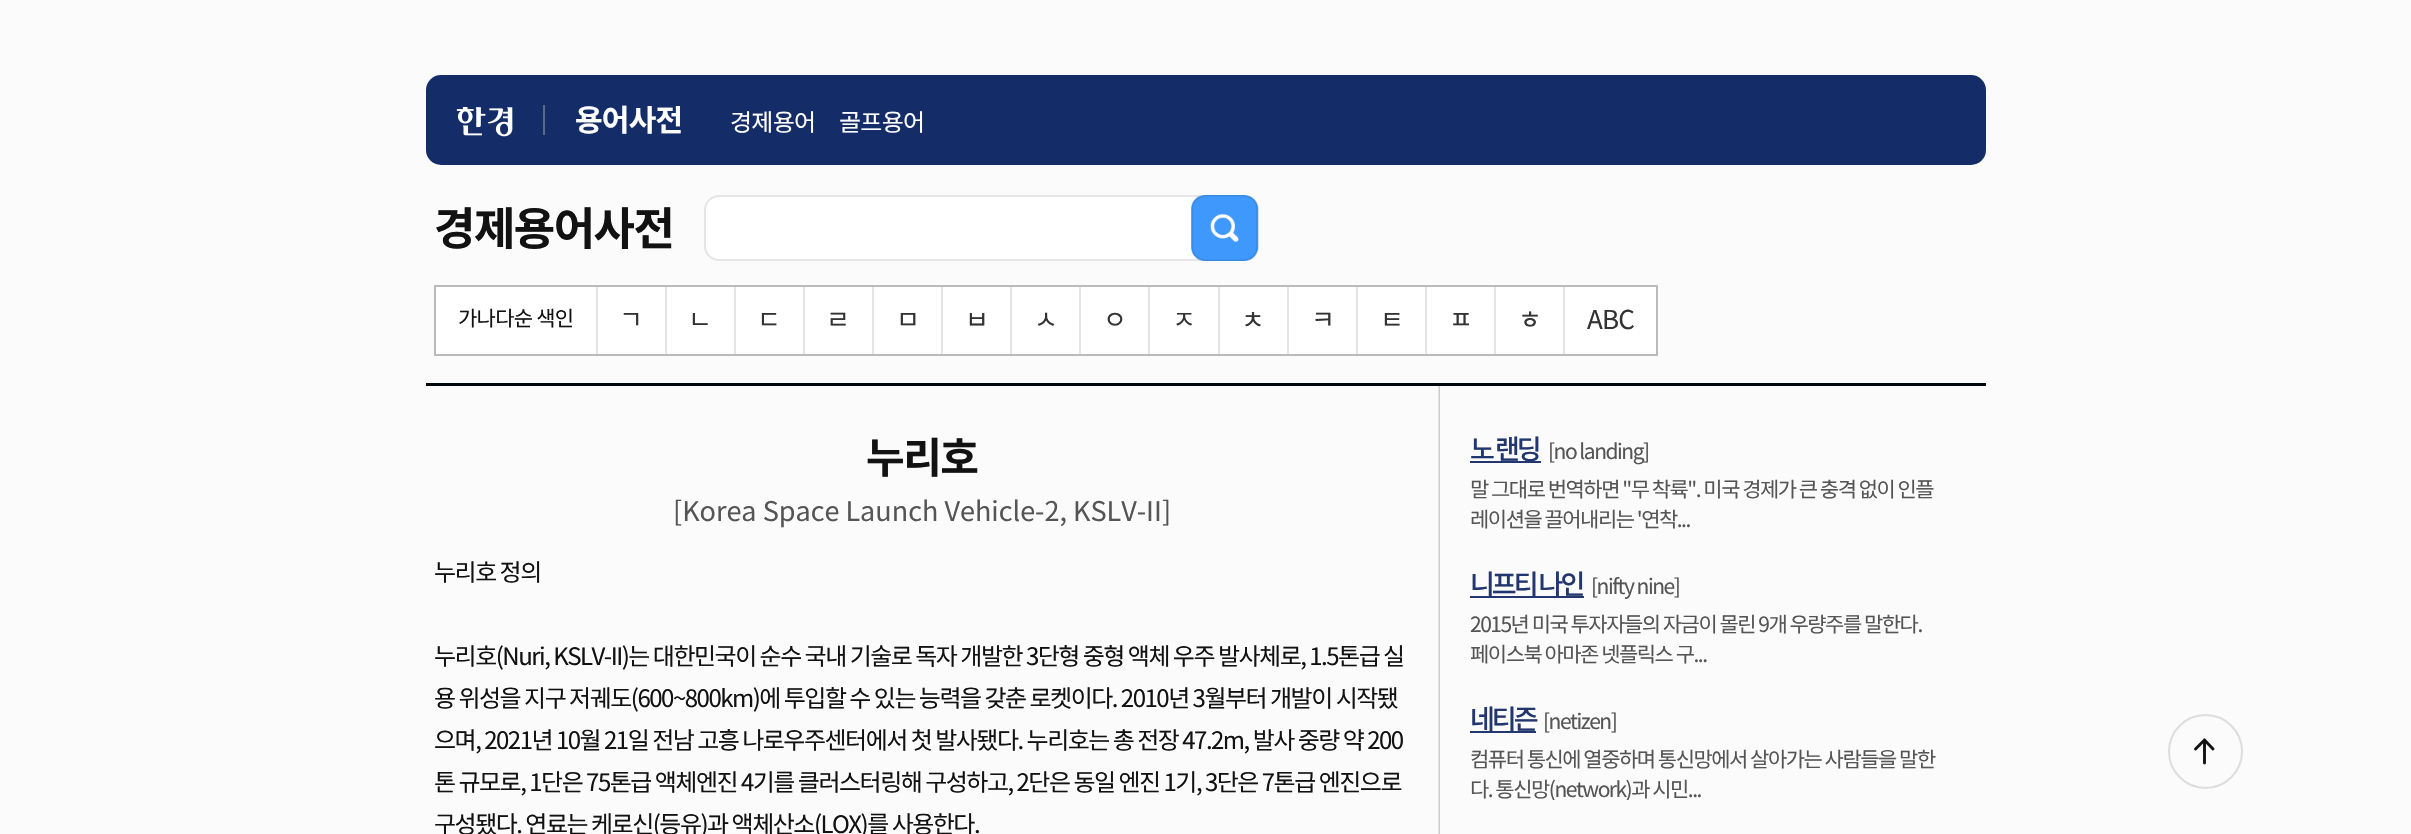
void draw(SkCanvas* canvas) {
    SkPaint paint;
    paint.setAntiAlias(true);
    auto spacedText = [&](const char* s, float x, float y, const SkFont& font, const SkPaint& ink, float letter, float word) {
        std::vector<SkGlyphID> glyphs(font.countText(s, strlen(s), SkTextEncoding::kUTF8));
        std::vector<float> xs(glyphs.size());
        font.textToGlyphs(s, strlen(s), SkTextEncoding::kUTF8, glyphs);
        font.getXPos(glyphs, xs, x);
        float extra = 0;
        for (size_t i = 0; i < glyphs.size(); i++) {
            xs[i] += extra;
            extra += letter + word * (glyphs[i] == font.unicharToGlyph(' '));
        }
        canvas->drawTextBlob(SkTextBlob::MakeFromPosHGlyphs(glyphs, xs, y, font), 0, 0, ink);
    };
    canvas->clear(0xFFFBFBFB);
    paint.setColor(0xFF142C67);
    canvas->drawRoundRect(SkRect::MakeXYWH(426, 75, 1560, 90), 15, 15, paint);
    canvas->drawImageRect(SkImages::DeferredFromEncodedData(SkData::MakeFromFileName("img1.png")), SkRect::MakeXYWH(456, 107, 57, 30), SkSamplingOptions());
    paint.setColor(0xFF5F6982);
    canvas->drawRect(SkRect::MakeXYWH(543, 105, 2, 30), paint);
    SkFont font1(fontMgr->matchFamilyStyle("Noto Sans KR", SkFontStyle::Bold()), 30);
    font1.setSubpixel(true);
    paint.setColor(0xFFFFFFFF);
    spacedText("용어사전", 575, 131, font1, paint, -0.75f, 0);
    SkFont font2(fontMgr->matchFamilyStyle("Noto Sans KR", SkFontStyle::Normal()), 24);
    font2.setSubpixel(true);
    spacedText("경제용어", 730, 131, font2, paint, -0.75f, 0);
    spacedText("골프용어", 839, 131, font2, paint, -0.75f, 0);
    paint.setColor(0xFF00080B);
    canvas->drawRect(SkRect::MakeXYWH(426, 383, 1560, 3), paint);
    SkFont font3(fontMgr->matchFamilyStyle("Noto Sans KR", SkFontStyle::Bold()), 45);
    font3.setSubpixel(true);
    paint.setColor(0xFF121212);
    spacedText("경제용어사전", 434, 245, font3, paint, -1.5f, 0);
    paint.setColor(0xFFFFFFFF);
    canvas->drawRoundRect(SkRect::MakeXYWH(705, 196, 553, 64), 14, 14, paint);
    paint.setStyle(SkPaint::kStroke_Style);
    paint.setStrokeWidth(2);
    paint.setColor(0xFFE5E5E5);
    canvas->drawRoundRect(SkRect::MakeXYWH(705, 196, 553, 64), 14, 14, paint);
    canvas->drawImageRect(SkImages::DeferredFromEncodedData(SkData::MakeFromFileName("img2.png")), SkRect::MakeXYWH(1191, 195, 68, 66), SkSamplingOptions());
    paint.setStyle(SkPaint::kFill_Style);
    paint.setColor(0xFFFFFFFF);
    canvas->drawRect(SkRect::MakeXYWH(435, 286, 1222, 69), paint);
    paint.setStyle(SkPaint::kStroke_Style);
    paint.setColor(0xFFBBBBBB);
    canvas->drawRect(SkRect::MakeXYWH(435, 286, 1222, 69), paint);
    SkFont font4(fontMgr->matchFamilyStyle("Noto Sans KR", SkFontStyle::Normal()), 21);
    font4.setSubpixel(true);
    paint.setStyle(SkPaint::kFill_Style);
    paint.setColor(0xFF121212);
    spacedText("가나다순 색인", 458, 326, font4, paint, -0.75f, 0);
    paint.setColor(0xFFE4E4E4);
    canvas->drawRect(SkRect::MakeXYWH(596, 287, 2, 67), paint);
    SkFont font5(fontMgr->matchFamilyStyle("Noto Sans KR", SkFontStyle::Normal()), 26);
    font5.setSubpixel(true);
    paint.setColor(0xFF333333);
    spacedText("ㄱ", 619, 329, font5, paint, -0.75f, 0);
    paint.setColor(0xFFE4E4E4);
    canvas->drawRect(SkRect::MakeXYWH(665, 287, 2, 67), paint);
    paint.setColor(0xFF333333);
    spacedText("ㄴ", 688, 329, font5, paint, -0.75f, 0);
    paint.setColor(0xFFE4E4E4);
    canvas->drawRect(SkRect::MakeXYWH(734, 287, 2, 67), paint);
    paint.setColor(0xFF333333);
    spacedText("ㄷ", 757, 329, font5, paint, -0.75f, 0);
    paint.setColor(0xFFE4E4E4);
    canvas->drawRect(SkRect::MakeXYWH(803, 287, 2, 67), paint);
    paint.setColor(0xFF333333);
    spacedText("ㄹ", 826, 329, font5, paint, -0.75f, 0);
    paint.setColor(0xFFE4E4E4);
    canvas->drawRect(SkRect::MakeXYWH(872, 287, 2, 67), paint);
    paint.setColor(0xFF333333);
    spacedText("ㅁ", 896, 329, font5, paint, -0.75f, 0);
    paint.setColor(0xFFE4E4E4);
    canvas->drawRect(SkRect::MakeXYWH(941, 287, 2, 67), paint);
    paint.setColor(0xFF333333);
    spacedText("ㅂ", 965, 329, font5, paint, -0.75f, 0);
    paint.setColor(0xFFE4E4E4);
    canvas->drawRect(SkRect::MakeXYWH(1010, 287, 2, 67), paint);
    paint.setColor(0xFF333333);
    spacedText("ㅅ", 1034, 329, font5, paint, -0.75f, 0);
    paint.setColor(0xFFE4E4E4);
    canvas->drawRect(SkRect::MakeXYWH(1079, 287, 2, 67), paint);
    paint.setColor(0xFF333333);
    spacedText("ㅇ", 1103, 329, font5, paint, -0.75f, 0);
    paint.setColor(0xFFE4E4E4);
    canvas->drawRect(SkRect::MakeXYWH(1148, 287, 2, 67), paint);
    paint.setColor(0xFF333333);
    spacedText("ㅈ", 1172, 329, font5, paint, -0.75f, 0);
    paint.setColor(0xFFE4E4E4);
    canvas->drawRect(SkRect::MakeXYWH(1218, 287, 2, 67), paint);
    paint.setColor(0xFF333333);
    spacedText("ㅊ", 1241, 329, font5, paint, -0.75f, 0);
    paint.setColor(0xFFE4E4E4);
    canvas->drawRect(SkRect::MakeXYWH(1287, 287, 2, 67), paint);
    paint.setColor(0xFF333333);
    spacedText("ㅋ", 1311, 329, font5, paint, -0.75f, 0);
    paint.setColor(0xFFE4E4E4);
    canvas->drawRect(SkRect::MakeXYWH(1356, 287, 2, 67), paint);
    paint.setColor(0xFF333333);
    spacedText("ㅌ", 1380, 329, font5, paint, -0.75f, 0);
    paint.setColor(0xFFE4E4E4);
    canvas->drawRect(SkRect::MakeXYWH(1425, 287, 2, 67), paint);
    paint.setColor(0xFF333333);
    spacedText("ㅍ", 1449, 329, font5, paint, -0.75f, 0);
    paint.setColor(0xFFE4E4E4);
    canvas->drawRect(SkRect::MakeXYWH(1494, 287, 2, 67), paint);
    paint.setColor(0xFF333333);
    spacedText("ㅎ", 1518, 329, font5, paint, -0.75f, 0);
    paint.setColor(0xFFE4E4E4);
    canvas->drawRect(SkRect::MakeXYWH(1563, 287, 2, 67), paint);
    paint.setColor(0xFF333333);
    spacedText("ABC", 1587, 329, font5, paint, -0.75f, 0);
    canvas->drawImageRect(SkImages::DeferredFromEncodedData(SkData::MakeFromFileName("img3.png")), SkRect::MakeXYWH(1438, 386, 2, 448), SkSamplingOptions());
    SkFont font6(fontMgr->matchFamilyStyle("Noto Sans KR", SkFontStyle::Bold()), 42);
    font6.setSubpixel(true);
    paint.setColor(0xFF121212);
    spacedText("누리호", 866, 473, font6, paint, -1.5f, 0);
    SkFont font7(fontMgr->matchFamilyStyle("Noto Sans KR", SkFontStyle::Normal()), 27);
    font7.setSubpixel(true);
    paint.setColor(0xFF555555);
    canvas->drawString("[Korea Space Launch Vehicle-2, KSLV-II]", 673, 521, font7, paint);
    paint.setColor(0xFF121212);
    spacedText("누리호 정의", 434, 581, font2, paint, -1.5f, 0);
    spacedText("누리호(Nuri, KSLV-II)는 대한민국이 순수 국내 기술로 독자 개발한 3단형 중형 액체 우주 발사체로, 1.5톤급 실", 434, 665, font2, paint, -1.5f, 0);
    spacedText("용 위성을 지구 저궤도(600~800km)에 투입할 수 있는 능력을 갖춘 로켓이다. 2010년 3월부터 개발이 시작됐", 434, 707, font2, paint, -1.5f, 0);
    spacedText("으며, 2021년 10월 21일 전남 고흥 나로우주센터에서 첫 발사됐다. 누리호는 총 전장 47.2m, 발사 중량 약 200", 434, 749, font2, paint, -1.5f, 0);
    spacedText("톤 규모로, 1단은 75톤급 액체엔진 4기를 클러스터링해 구성하고, 2단은 동일 엔진 1기, 3단은 7톤급 엔진으로", 434, 791, font2, paint, -1.5f, 0);
    spacedText("구성됐다. 연료는 케로신(등유)과 액체산소(LOX)를 사용한다.", 434, 833, font2, paint, -1.5f, 0);
    paint.setColor(0xFF22376F);
    canvas->drawRect(SkRect::MakeXYWH(1470, 461, 71, 2), paint);
    SkFont font8(fontMgr->matchFamilyStyle("Noto Sans KR", SkFontStyle(500, SkFontStyle::kNormal_Width, SkFontStyle::kUpright_Slant)), 27);
    font8.setSubpixel(true);
    spacedText("노 랜딩", 1470, 459, font8, paint, -3, 0);
    paint.setColor(0xFF555555);
    spacedText("[no landing]", 1548, 459, font4, paint, -1.5f, 0);
    spacedText("말 그대로 번역하면 \"무 착륙\". 미국 경제가 큰 충격 없이 인플", 1470, 497, font4, paint, -1.5f, 0);
    spacedText("레이션을 끌어내리는 '연착...", 1470, 527, font4, paint, -1.5f, 0);
    paint.setColor(0xFF22376F);
    canvas->drawRect(SkRect::MakeXYWH(1470, 596, 114, 2), paint);
    spacedText("니프티 나인", 1470, 594, font8, paint, -3, 0);
    paint.setColor(0xFF555555);
    spacedText("[nifty nine]", 1591, 594, font4, paint, -1.5f, 0);
    spacedText("2015년 미국 투자자들의 자금이 몰린 9개 우량주를 말한다.", 1470, 632, font4, paint, -1.5f, 0);
    spacedText("페이스북 아마존 넷플릭스 구...", 1470, 662, font4, paint, -1.5f, 0);
    paint.setColor(0xFF22376F);
    canvas->drawRect(SkRect::MakeXYWH(1470, 731, 66, 2), paint);
    spacedText("네티즌", 1470, 729, font8, paint, -3, 0);
    paint.setColor(0xFF555555);
    spacedText("[netizen]", 1543, 729, font4, paint, -1.5f, 0);
    spacedText("컴퓨터 통신에 열중하며 통신망에서 살아가는 사람들을 말한", 1470, 767, font4, paint, -1.5f, 0);
    canvas->save();
    canvas->clipRect(SkRect::MakeXYWH(1470, 743, 468, 57));
    spacedText("다. 통신망(network)과 시민...", 1470, 797, font4, paint, -1.5f, 0);
    canvas->restore();
    paint.setStyle(SkPaint::kStroke_Style);
    paint.setColor(0xFFDDDDDD);
    canvas->drawCircle(2205.5f, 751.5f, 36.5f, paint);
    paint.setStrokeWidth(2.9f);
    paint.setStrokeCap(SkPaint::kRound_Cap);
    paint.setStrokeJoin(SkPaint::kRound_Join);
    paint.setColor(0xFF121212);
    canvas->drawPath(SkPathBuilder().moveTo(2204.5f, 763).lineTo(2204.5f, 740).moveTo(2204.5f, 740).lineTo(2195.5f, 749).moveTo(2204.5f, 740).lineTo(2213, 749).detach(), paint);
}
